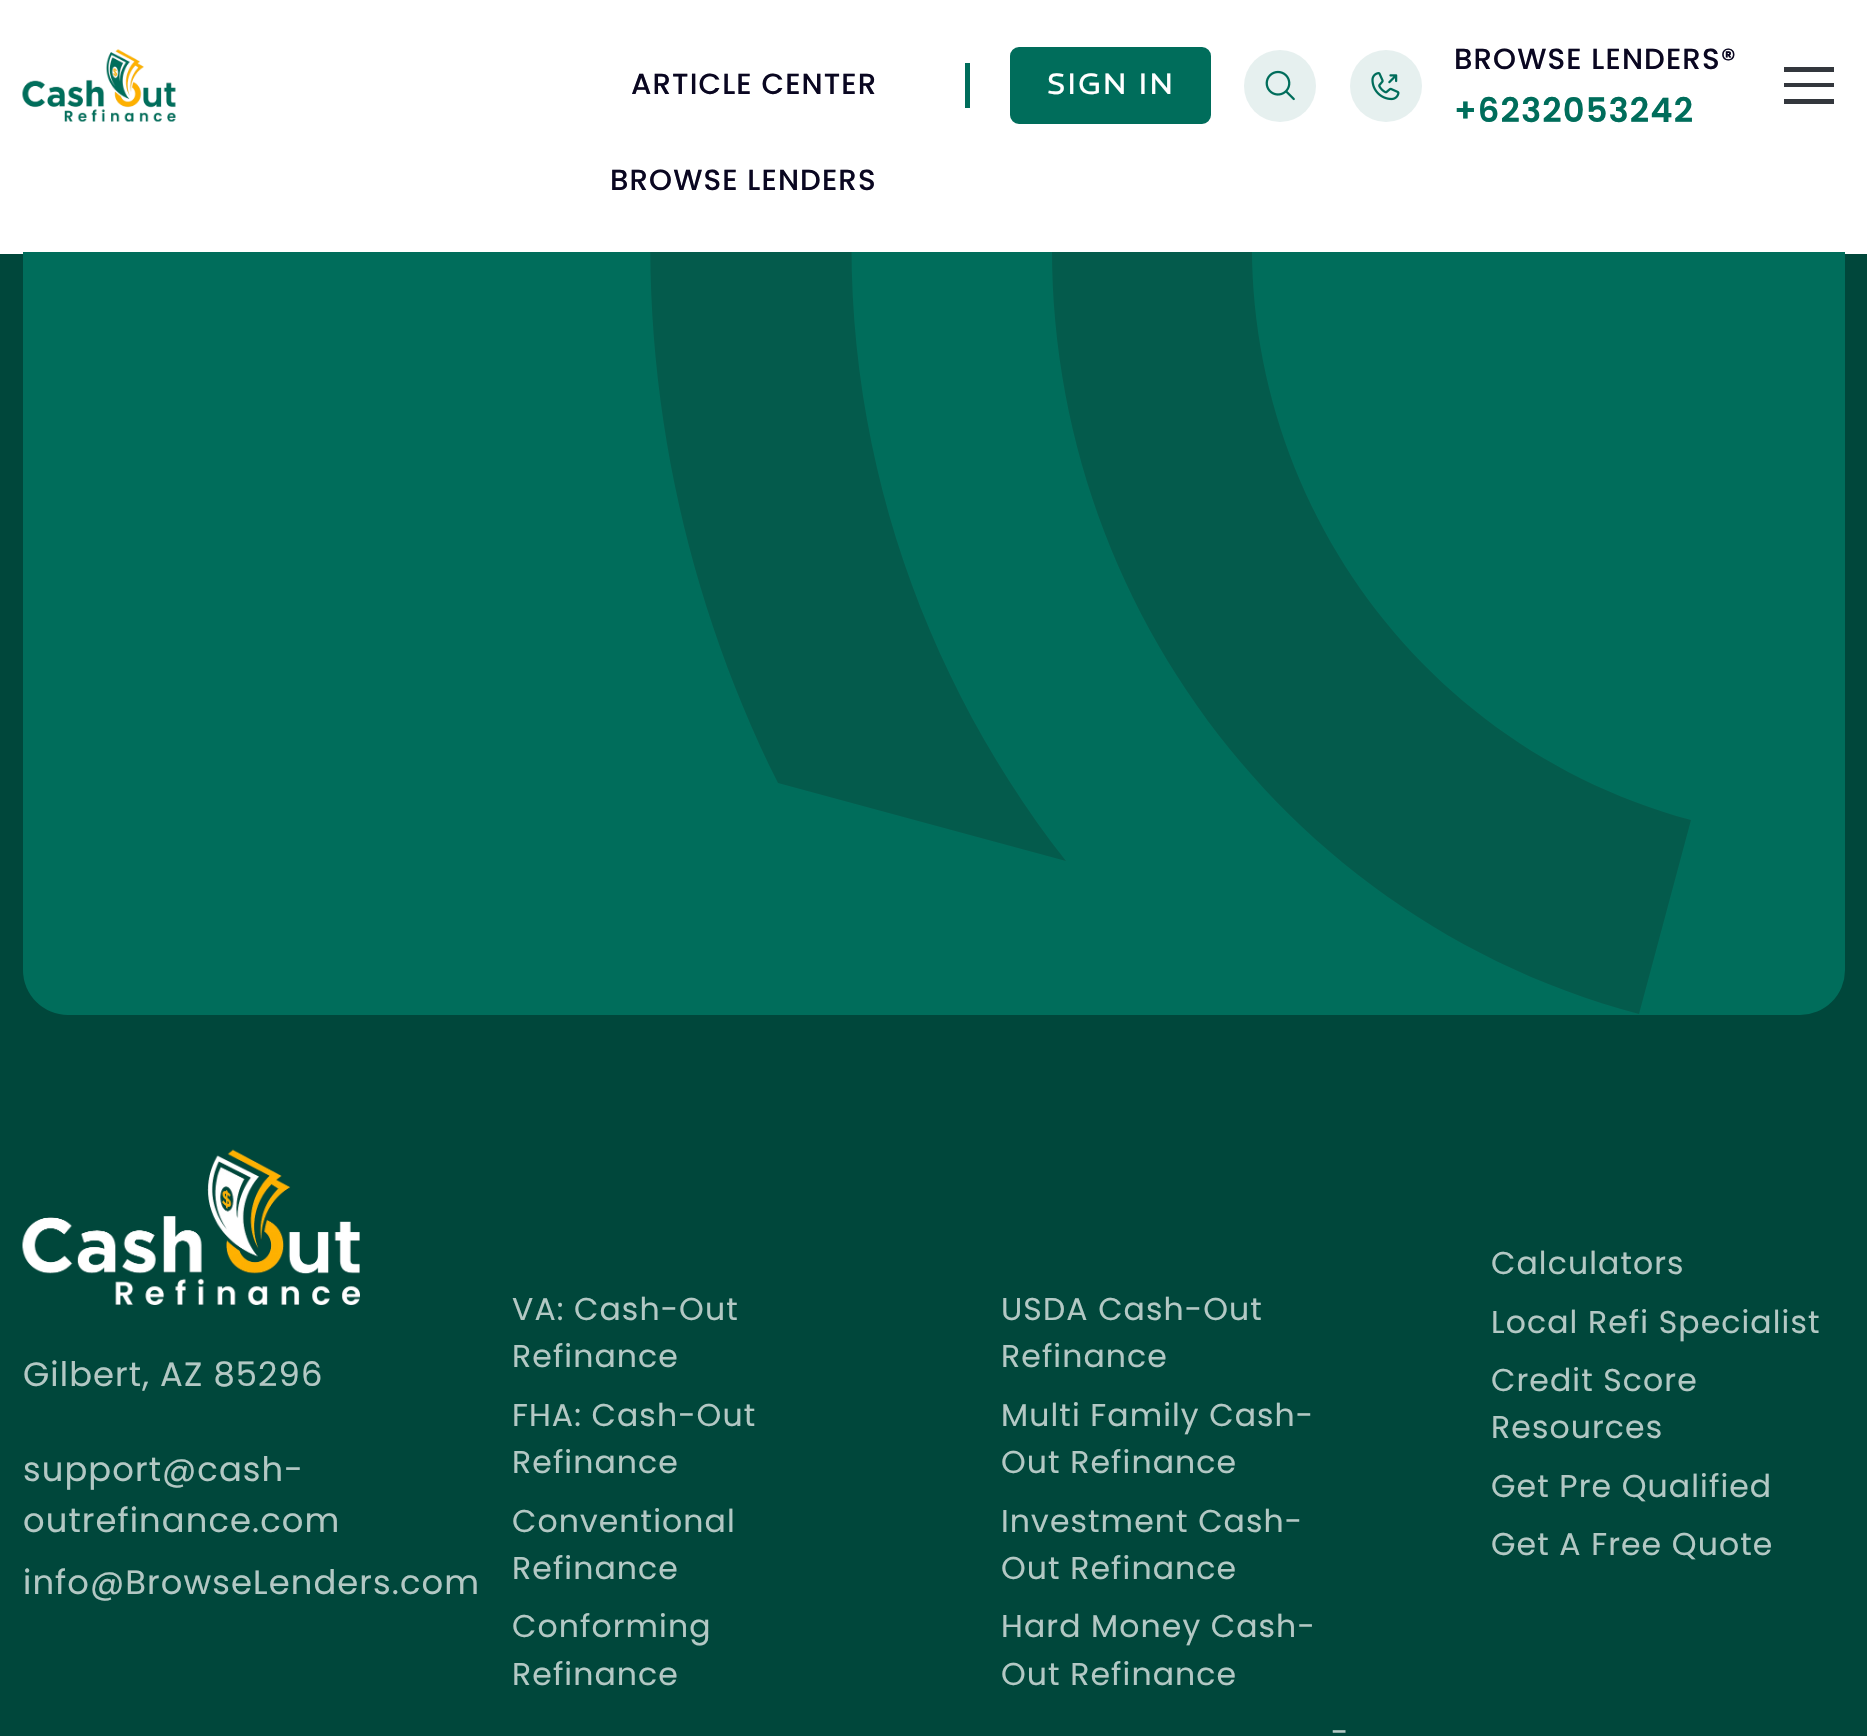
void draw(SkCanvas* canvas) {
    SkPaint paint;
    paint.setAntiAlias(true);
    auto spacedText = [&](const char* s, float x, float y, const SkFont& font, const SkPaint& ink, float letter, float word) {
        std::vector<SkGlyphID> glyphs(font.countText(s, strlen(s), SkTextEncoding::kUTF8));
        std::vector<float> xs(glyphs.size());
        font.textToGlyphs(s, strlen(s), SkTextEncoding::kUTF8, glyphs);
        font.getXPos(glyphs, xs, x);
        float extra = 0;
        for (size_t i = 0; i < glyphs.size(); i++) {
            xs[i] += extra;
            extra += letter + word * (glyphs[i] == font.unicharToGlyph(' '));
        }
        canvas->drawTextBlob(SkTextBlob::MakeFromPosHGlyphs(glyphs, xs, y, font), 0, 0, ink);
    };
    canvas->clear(0xFFFFFFFF);
    paint.setColor(0xFF00473B);
    canvas->drawRect(SkRect::MakeXYWH(0, 254, 1867, 1482), paint);
    paint.setColor(0xFF006D5B);
    canvas->drawRoundRect(SkRect::MakeXYWH(23, 119, 1822, 896), 45, 45, paint);
    paint.setColor(0xFF045B4C);
    canvas->drawPath(SkPathBuilder().moveTo(1639, 1014).lineTo(1691, 820).cubicTo(1384, 737, 1198, 427, 1266, 119).lineTo(1063, 119).cubicTo(996, 516, 1242, 908, 1639, 1014).close().detach(), paint);
    canvas->drawPath(SkPathBuilder().moveTo(778, 783).cubicTo(678, 582, 632, 353, 657, 119).lineTo(860, 119).cubicTo(824, 390, 905, 655, 1066, 861).close().detach(), paint);
    paint.setColor(0xFFFFFFFF);
    canvas->drawRect(SkRect::MakeXYWH(23, 119, 1822, 133), paint);
    canvas->drawImageRect(SkImages::DeferredFromEncodedData(SkData::MakeFromFileName("img1.png")), SkRect::MakeXYWH(22, 49, 154, 73), SkSamplingOptions());
    SkFont font1(fontMgr->matchFamilyStyle("Poppins", SkFontStyle(500, SkFontStyle::kNormal_Width, SkFontStyle::kUpright_Slant)), 29.25f);
    font1.setSubpixel(true);
    paint.setColor(0xFF0A0721);
    spacedText("ARTICLE CENTER", 631, 94, font1, paint, 1.1f, 0);
    spacedText("BROWSE LENDERS", 610, 190, font1, paint, 1.1f, 0);
    paint.setColor(0xFF006D5B);
    canvas->drawRect(SkRect::MakeXYWH(965, 63, 5, 45), paint);
    canvas->drawRoundRect(SkRect::MakeXYWH(1011, 48, 199, 75), 8, 8, paint);
    paint.setStyle(SkPaint::kStroke_Style);
    paint.setStrokeWidth(2);
    canvas->drawRoundRect(SkRect::MakeXYWH(1011, 48, 199, 75), 8, 8, paint);
    SkFont font2(fontMgr->matchFamilyStyle("REM", SkFontStyle::Normal()), 29.25f);
    font2.setSubpixel(true);
    paint.setStyle(SkPaint::kFill_Style);
    paint.setColor(0xFFFFFFFF);
    spacedText("SIGN IN", 1047, 94, font2, paint, 2.25f, 0);
    paint.setColor(0xFFE6F0EF);
    canvas->drawCircle(1280, 86, 36, paint);
    canvas->drawImageRect(SkImages::DeferredFromEncodedData(SkData::MakeFromFileName("img2.png")), SkRect::MakeXYWH(1265, 70, 30, 31), SkSamplingOptions());
    canvas->drawCircle(1386, 86, 36, paint);
    canvas->drawImageRect(SkImages::DeferredFromEncodedData(SkData::MakeFromFileName("img3.png")), SkRect::MakeXYWH(1371, 72, 29, 29), SkSamplingOptions());
    paint.setColor(0xFF0A0721);
    spacedText("BROWSE LENDERS®", 1454, 69, font1, paint, 1.1f, 0);
    SkFont font3(fontMgr->matchFamilyStyle("Poppins", SkFontStyle(600, SkFontStyle::kNormal_Width, SkFontStyle::kUpright_Slant)), 33.75f);
    font3.setSubpixel(true);
    paint.setColor(0xFF006D5B);
    spacedText("+6232053242", 1454, 122, font3, paint, 1.1f, 0);
    paint.setColor(0xFF33373D);
    canvas->drawRect(SkRect::MakeXYWH(1784, 67, 50, 5), paint);
    canvas->drawRect(SkRect::MakeXYWH(1784, 83, 50, 4), paint);
    canvas->drawRect(SkRect::MakeXYWH(1784, 99, 50, 5), paint);
    canvas->drawImageRect(SkImages::DeferredFromEncodedData(SkData::MakeFromFileName("img4.png")), SkRect::MakeXYWH(22, 1149, 338, 156), SkSamplingOptions());
    SkFont font4(fontMgr->matchFamilyStyle("Poppins", SkFontStyle::Normal()), 33.75f);
    font4.setSubpixel(true);
    paint.setColor(0xFFB3C8C4);
    spacedText("Gilbert, AZ 85296", 23, 1386, font4, paint, 1.1f, 0);
    spacedText("support@cash-", 23, 1481, font4, paint, 1.1f, 0);
    spacedText("outrefinance.com", 23, 1532, font4, paint, 1.1f, 0);
    spacedText("info@BrowseLenders.com", 23, 1594, font4, paint, 1.1f, 0);
    SkFont font5(fontMgr->matchFamilyStyle("Poppins", SkFontStyle::Normal()), 31.5f);
    font5.setSubpixel(true);
    spacedText("VA: Cash-Out", 512, 1320, font5, paint, 1.1f, 0);
    spacedText("Refinance", 512, 1367, font5, paint, 1.1f, 0);
    spacedText("FHA: Cash-Out", 512, 1426, font5, paint, 1.1f, 0);
    spacedText("Refinance", 512, 1473, font5, paint, 1.1f, 0);
    spacedText("Conventional", 512, 1532, font5, paint, 1.1f, 0);
    spacedText("Refinance", 512, 1579, font5, paint, 1.1f, 0);
    spacedText("Conforming", 512, 1637, font5, paint, 1.1f, 0);
    spacedText("Refinance", 512, 1685, font5, paint, 1.1f, 0);
    spacedText("USDA Cash-Out", 1001, 1320, font5, paint, 1.1f, 0);
    spacedText("Refinance", 1001, 1367, font5, paint, 1.1f, 0);
    spacedText("Multi Family Cash-", 1001, 1426, font5, paint, 1.1f, 0);
    spacedText("Out Refinance", 1001, 1473, font5, paint, 1.1f, 0);
    spacedText("Investment Cash-", 1001, 1532, font5, paint, 1.1f, 0);
    spacedText("Out Refinance", 1001, 1579, font5, paint, 1.1f, 0);
    spacedText("Hard Money Cash-", 1001, 1637, font5, paint, 1.1f, 0);
    spacedText("Out Refinance", 1001, 1685, font5, paint, 1.1f, 0);
    spacedText("-", 1331, 1743, font5, paint, 1.1f, 0);
    spacedText("Calculators", 1491, 1274, font5, paint, 1.1f, 0);
    spacedText("Local Refi Specialist", 1491, 1333, font5, paint, 1.1f, 0);
    spacedText("Credit Score", 1491, 1391, font5, paint, 1.1f, 0);
    spacedText("Resources", 1491, 1438, font5, paint, 1.1f, 0);
    spacedText("Get Pre Qualified", 1491, 1497, font5, paint, 1.1f, 0);
    spacedText("Get A Free Quote", 1491, 1555, font5, paint, 1.1f, 0);
}
